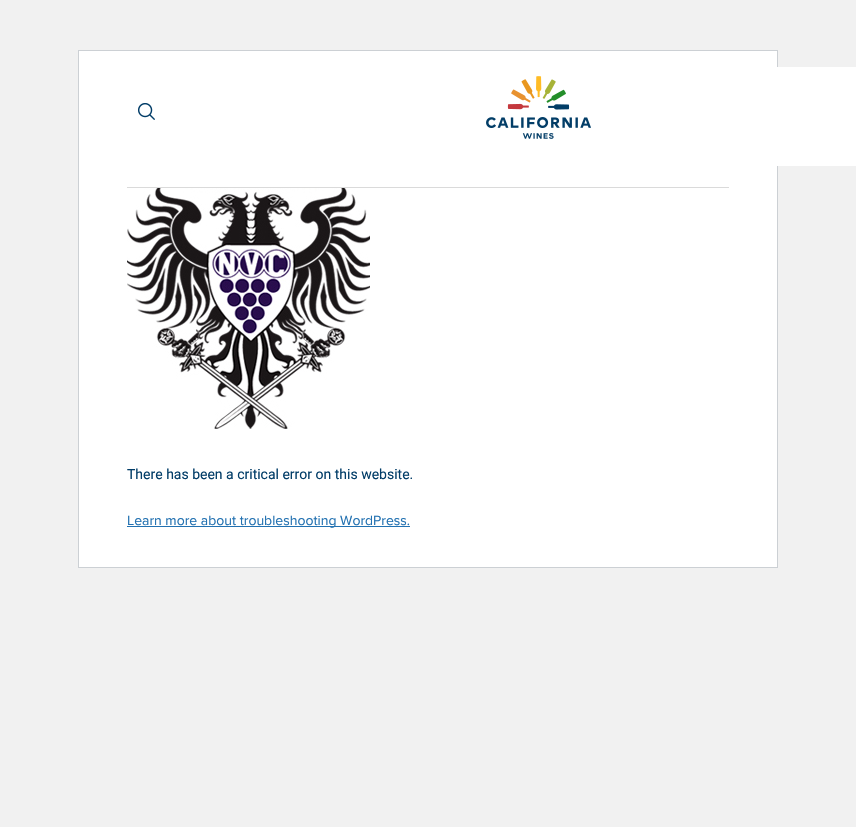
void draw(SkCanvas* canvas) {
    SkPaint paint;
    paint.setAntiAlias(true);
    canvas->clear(0xFFF1F1F1);
    paint.setColor(0xFFFFFFFF);
    canvas->drawRect(SkRect::MakeXYWH(78.5f, 50.5f, 699, 517), paint);
    paint.setStyle(SkPaint::kStroke_Style);
    paint.setStrokeWidth(1);
    paint.setColor(0xFFCCD0D4);
    canvas->drawRect(SkRect::MakeXYWH(78.5f, 50.5f, 699, 517), paint);
    paint.setStyle(SkPaint::kFill_Style);
    paint.setColor(0xFFFFFFFF);
    canvas->drawRect(SkRect::MakeXYWH(777, 67, 79, 99), paint);
    canvas->drawImageRect(SkImages::DeferredFromEncodedData(SkData::MakeFromFileName("img1.png")), SkRect::MakeXYWH(138, 103, 17, 17), SkSamplingOptions());
    canvas->drawImageRect(SkImages::DeferredFromEncodedData(SkData::MakeFromFileName("img2.png")), SkRect::MakeXYWH(486, 76, 105, 63), SkSamplingOptions());
    paint.setColor(0xFFDADADA);
    canvas->drawRect(SkRect::MakeXYWH(127, 187, 602, 1), paint);
    canvas->drawImageRect(SkImages::DeferredFromEncodedData(SkData::MakeFromFileName("img3.png")), SkRect::MakeXYWH(127, 188, 243, 241), SkSamplingOptions());
    SkFont font1(fontMgr->matchFamilyStyle("Roboto", SkFontStyle::Normal()), 14);
    font1.setSubpixel(true);
    paint.setColor(0xFF023D68);
    canvas->drawString("There has been a critical error on this website.", 127, 479, font1, paint);
    paint.setColor(0xFF2271B1);
    canvas->drawRect(SkRect::MakeXYWH(127, 526, 283, 1), paint);
    SkFont font2(fontMgr->matchFamilyStyle("Proxima Nova", SkFontStyle::Normal()), 14);
    font2.setSubpixel(true);
    canvas->drawString("Learn more about troubleshooting WordPress.", 127, 525, font2, paint);
}
